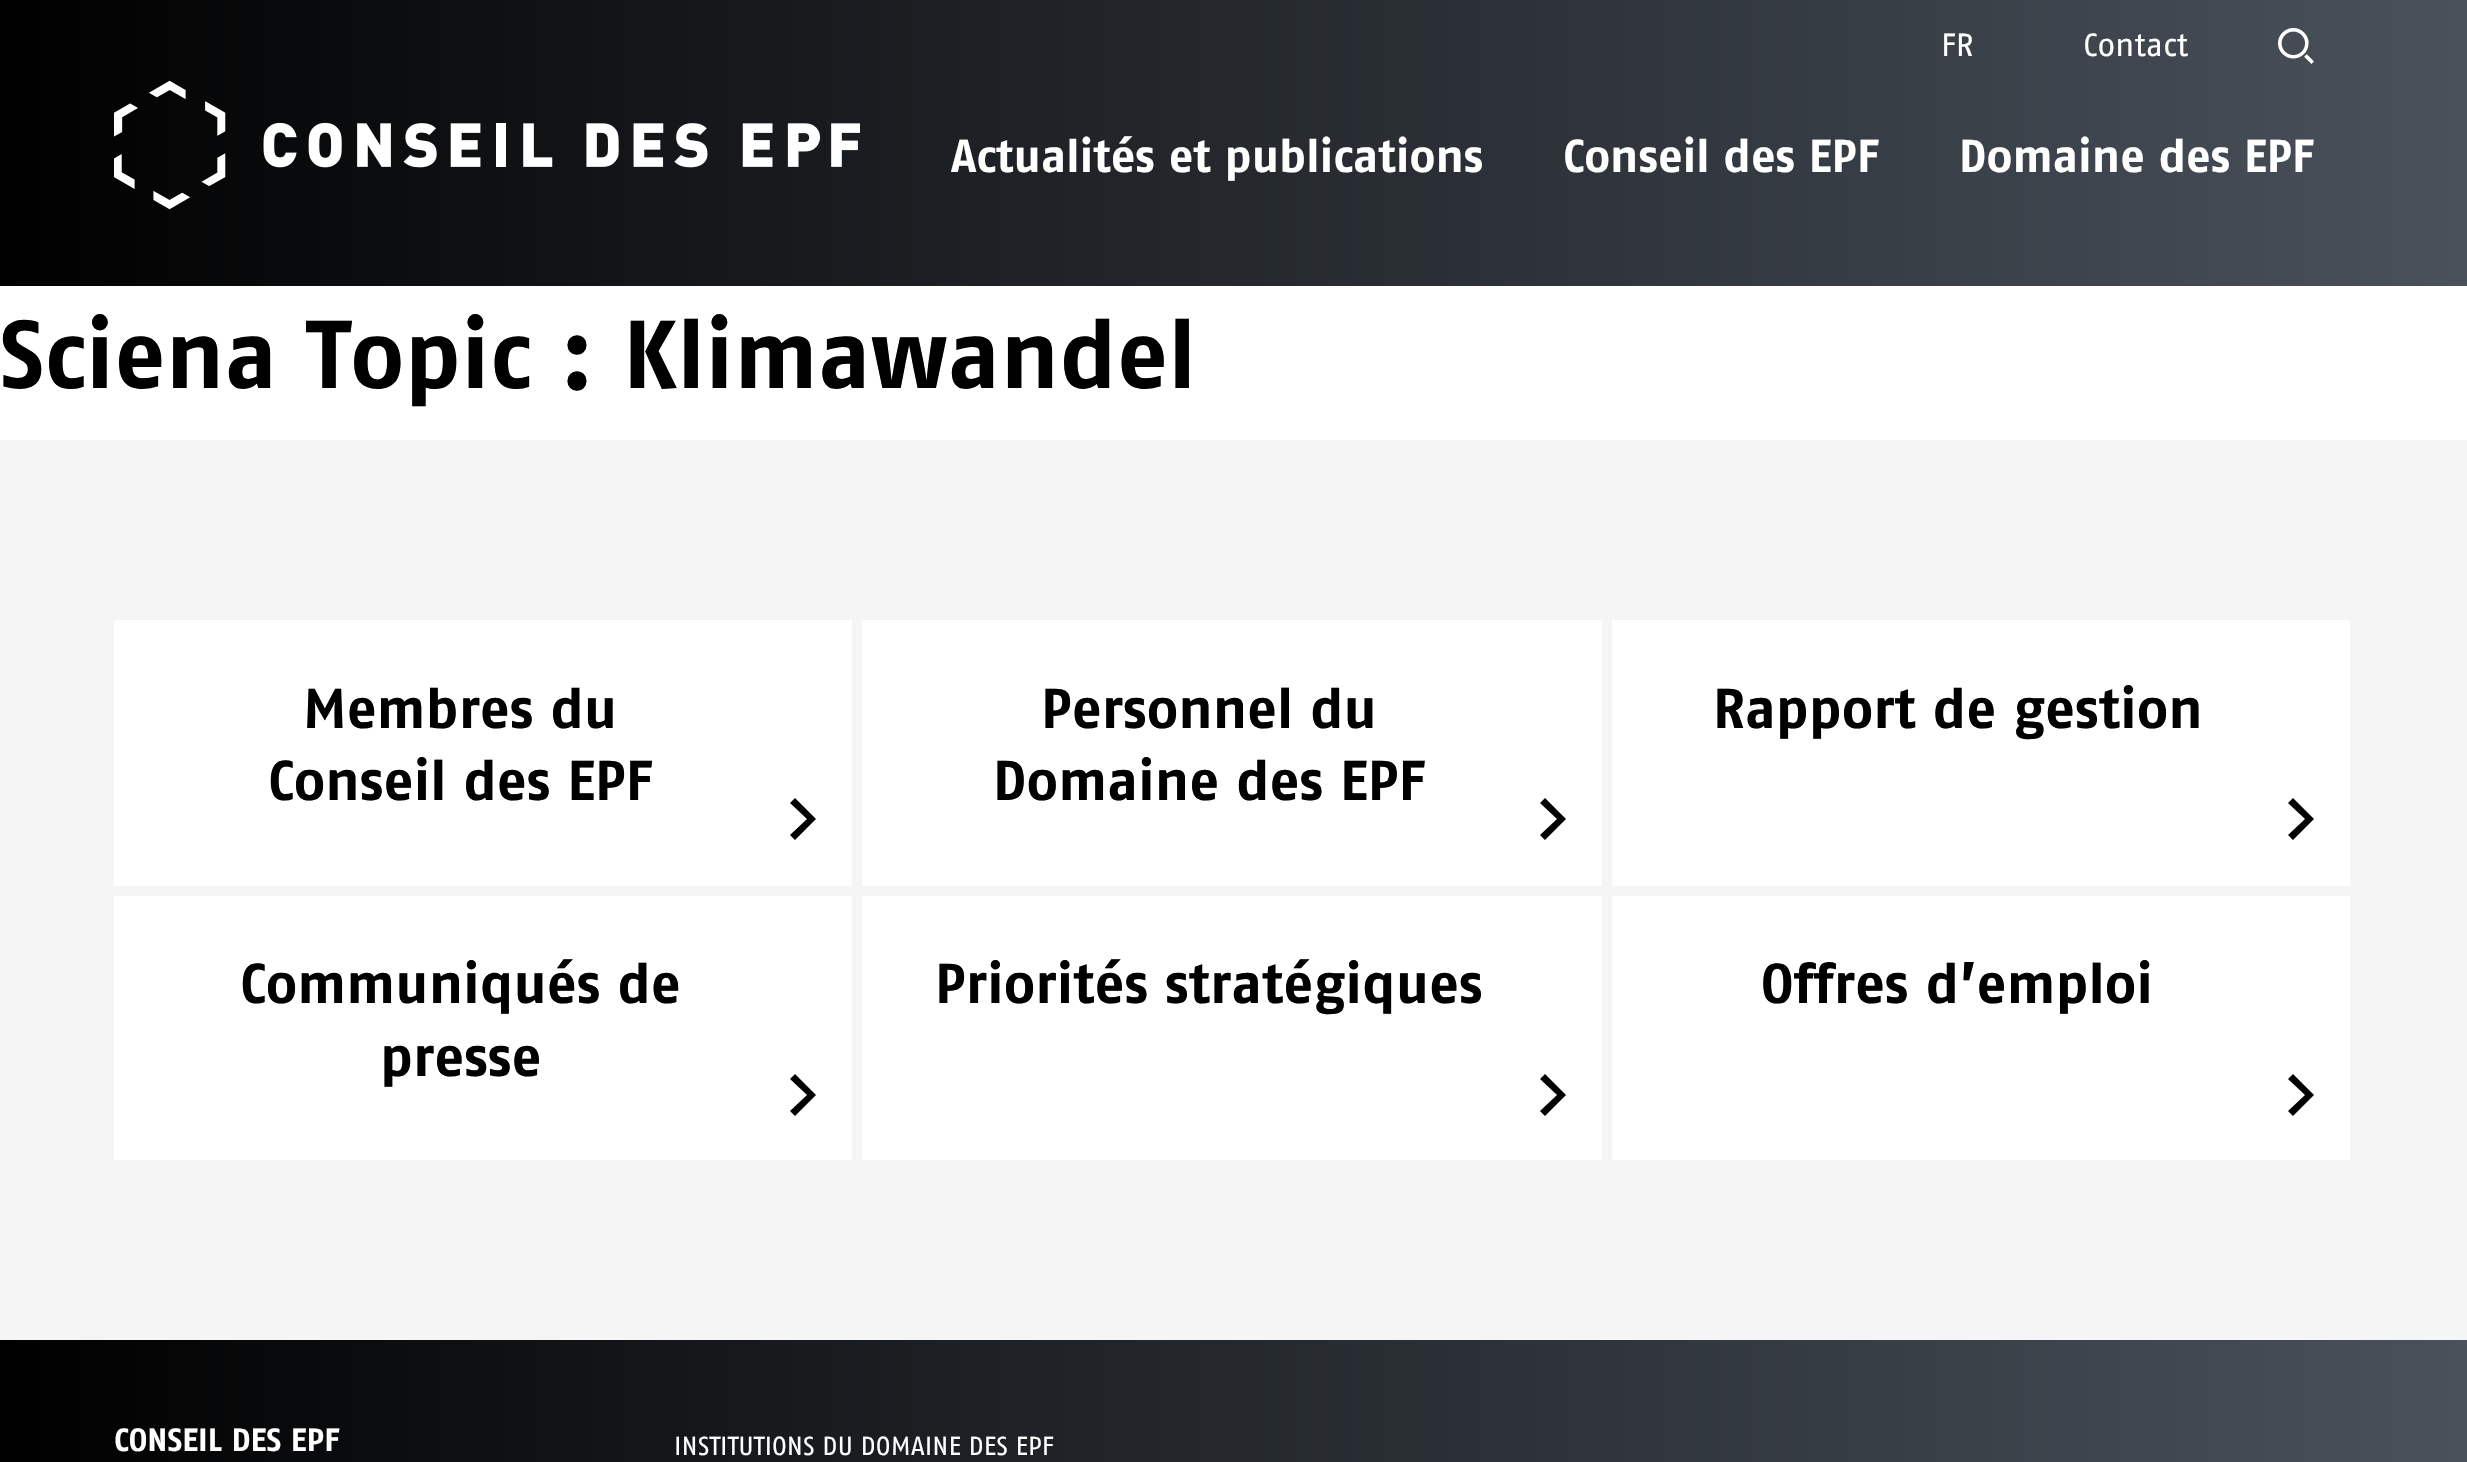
void draw(SkCanvas* canvas) {
    SkPaint paint;
    paint.setAntiAlias(true);
    canvas->clear(0xFFFFFFFF);
    {
        const SkColor colors[] = {0xFF000000, 0xFF49515B};
        const float stops[] = {0, 1};
        const SkPoint ends[] = {{0, 143}, {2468, 143}};
        paint.setShader(SkGradientShader::MakeLinear(ends, colors, stops, 2, SkTileMode::kClamp));
        paint.setAlpha(255);
    }
    canvas->drawRect(SkRect::MakeXYWH(0, 0, 2467, 286), paint);
    canvas->drawImageRect(SkImages::DeferredFromEncodedData(SkData::MakeFromFileName("img1.png")), SkRect::MakeXYWH(114, 80, 746, 130), SkSamplingOptions());
    SkFont font1(fontMgr->matchFamilyStyle("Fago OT", SkFontStyle::Normal()), 32);
    font1.setSubpixel(true);
    paint.setShader(nullptr);
    paint.setColor(0xFFFFFFFF);
    canvas->drawString("FR", 1941, 56, font1, paint);
    canvas->drawString("Contact", 2083, 56, font1, paint);
    canvas->drawImageRect(SkImages::DeferredFromEncodedData(SkData::MakeFromFileName("img2.png")), SkRect::MakeXYWH(2278, 28, 36, 36), SkSamplingOptions());
    SkFont font2(fontMgr->matchFamilyStyle("Fago OT", SkFontStyle::Bold()), 46);
    font2.setSubpixel(true);
    canvas->drawString("Actualités et publications", 951, 172, font2, paint);
    canvas->drawString("Conseil des EPF", 1563, 172, font2, paint);
    canvas->drawString("Domaine des EPF", 1959, 172, font2, paint);
    SkFont font3(fontMgr->matchFamilyStyle("Fago OT", SkFontStyle::Bold()), 96);
    font3.setSubpixel(true);
    paint.setColor(0xFF000000);
    canvas->drawString("Sciena Topic : Klimawandel", 0, 388, font3, paint);
    paint.setColor(0xFFF5F5F5);
    canvas->drawRect(SkRect::MakeXYWH(0, 440, 2467, 900), paint);
    paint.setColor(0xFFFFFFFF);
    canvas->drawRect(SkRect::MakeXYWH(114, 620, 738, 266), paint);
    paint.setColor(0xFF000000);
    canvas->drawPath(SkPathBuilder().moveTo(790, 835).lineTo(807, 819).lineTo(790, 803).lineTo(795, 798).lineTo(816, 819).lineTo(795, 840).close().detach(), paint);
    SkFont font4(fontMgr->matchFamilyStyle("Fago OT", SkFontStyle::Bold()), 56);
    font4.setSubpixel(true);
    canvas->drawString("Membres du", 303, 728, font4, paint);
    canvas->drawString("Conseil des EPF", 268, 800, font4, paint);
    paint.setColor(0xFFFFFFFF);
    canvas->drawRect(SkRect::MakeXYWH(862, 620, 740, 266), paint);
    paint.setColor(0xFF000000);
    canvas->drawPath(SkPathBuilder().moveTo(1540, 835).lineTo(1557, 819).lineTo(1540, 803).lineTo(1545, 798).lineTo(1566, 819).lineTo(1545, 840).close().detach(), paint);
    canvas->drawString("Personnel du", 1041, 728, font4, paint);
    canvas->drawString("Domaine des EPF", 993, 800, font4, paint);
    paint.setColor(0xFFFFFFFF);
    canvas->drawRect(SkRect::MakeXYWH(1612, 620, 738, 266), paint);
    paint.setColor(0xFF000000);
    canvas->drawPath(SkPathBuilder().moveTo(2288, 835).lineTo(2305, 819).lineTo(2288, 803).lineTo(2293, 798).lineTo(2314, 819).lineTo(2293, 840).close().detach(), paint);
    canvas->drawString("Rapport de gestion", 1713, 728, font4, paint);
    paint.setColor(0xFFFFFFFF);
    canvas->drawRect(SkRect::MakeXYWH(114, 896, 738, 264), paint);
    paint.setColor(0xFF000000);
    canvas->drawPath(SkPathBuilder().moveTo(790, 1111).lineTo(807, 1095).lineTo(790, 1079).lineTo(795, 1074).lineTo(816, 1095).lineTo(795, 1116).close().detach(), paint);
    canvas->drawString("Communiqués de", 240, 1003, font4, paint);
    canvas->drawString("presse", 380, 1076, font4, paint);
    paint.setColor(0xFFFFFFFF);
    canvas->drawRect(SkRect::MakeXYWH(862, 896, 740, 264), paint);
    paint.setColor(0xFF000000);
    canvas->drawPath(SkPathBuilder().moveTo(1540, 1111).lineTo(1557, 1095).lineTo(1540, 1079).lineTo(1545, 1074).lineTo(1566, 1095).lineTo(1545, 1116).close().detach(), paint);
    canvas->drawString("Priorités stratégiques", 935, 1003, font4, paint);
    paint.setColor(0xFFFFFFFF);
    canvas->drawRect(SkRect::MakeXYWH(1612, 896, 738, 264), paint);
    paint.setColor(0xFF000000);
    canvas->drawPath(SkPathBuilder().moveTo(2288, 1111).lineTo(2305, 1095).lineTo(2288, 1079).lineTo(2293, 1074).lineTo(2314, 1095).lineTo(2293, 1116).close().detach(), paint);
    canvas->drawString("Offres d’emploi", 1761, 1003, font4, paint);
    {
        const SkColor colors[] = {0xFF000000, 0xFF49515B};
        const float stops[] = {0, 1};
        const SkPoint ends[] = {{0, 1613}, {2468, 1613}};
        paint.setShader(SkGradientShader::MakeLinear(ends, colors, stops, 2, SkTileMode::kClamp));
        paint.setAlpha(255);
    }
    canvas->drawRect(SkRect::MakeXYWH(0, 1340, 2467, 122), paint);
    SkFont font5(fontMgr->matchFamilyStyle("Fago OT", SkFontStyle::Bold()), 32);
    font5.setSubpixel(true);
    paint.setShader(nullptr);
    paint.setColor(0xFFFFFFFF);
    canvas->drawString("CONSEIL DES EPF", 114, 1451, font5, paint);
    SkFont font6(fontMgr->matchFamilyStyle("Fago OT", SkFontStyle::Normal()), 26);
    font6.setSubpixel(true);
    canvas->drawString("INSTITUTIONS DU DOMAINE DES EPF", 674, 1455, font6, paint);
}
